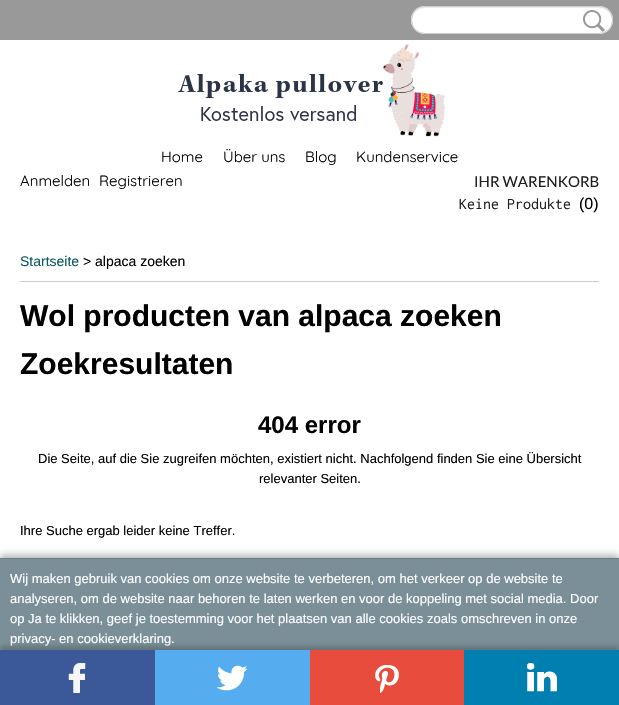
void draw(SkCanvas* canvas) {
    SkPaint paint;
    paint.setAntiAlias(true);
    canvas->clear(0xFFFFFFFF);
    paint.setColor(0xFF999999);
    canvas->drawRect(SkRect::MakeXYWH(0, 0, 619, 40), paint);
    paint.setColor(0xFFFFFFFF);
    canvas->drawRoundRect(SkRect::MakeXYWH(411, 6, 202, 28), 14, 14, paint);
    paint.setColor(0xFFECECEC);
    canvas->drawPath(SkPathBuilder().moveTo(425, 8).lineTo(599, 8).cubicTo(606, 8, 612, 14, 612, 21).cubicTo(613, 0, 578, 7, 570, 7).lineTo(454, 7).cubicTo(446, 7, 411, 0, 412, 21).cubicTo(412, 14, 418, 8, 425, 8).close().detach(), paint);
    paint.setStyle(SkPaint::kStroke_Style);
    paint.setStrokeWidth(1);
    paint.setColor(0xFFCCCCCC);
    canvas->drawRoundRect(SkRect::MakeXYWH(411.5f, 6.5f, 201, 27), 13.5f, 13.5f, paint);
    canvas->drawImageRect(SkImages::DeferredFromEncodedData(SkData::MakeFromFileName("img1.png")), SkRect::MakeXYWH(583, 10, 22, 22), SkSamplingOptions());
    canvas->drawImageRect(SkImages::DeferredFromEncodedData(SkData::MakeFromFileName("img2.png")), SkRect::MakeXYWH(178, 44, 267, 93), SkSamplingOptions());
    SkFont font1(fontMgr->matchFamilyStyle("Quicksand", SkFontStyle::Normal()), 15);
    font1.setSubpixel(true);
    paint.setStyle(SkPaint::kFill_Style);
    paint.setColor(0xFF000000);
    canvas->drawString("Home", 161, 162, font1, paint);
    canvas->drawString("Über uns", 223, 162, font1, paint);
    canvas->drawString("Blog", 305, 162, font1, paint);
    canvas->drawString("Kundenservice", 356, 162, font1, paint);
    canvas->drawString("Anmelden", 20, 186, font1, paint);
    canvas->drawString("Registrieren", 99, 186, font1, paint);
    SkFont font2(fontMgr->matchFamilyStyle("Lato", SkFontStyle::Normal()), 15);
    font2.setSubpixel(true);
    paint.setColor(0xFF1F1F1F);
    canvas->drawString("IHR WARENKORB", 474, 187, font2, paint);
    SkFont font3(fontMgr->matchFamilyStyle("Inconsolata", SkFontStyle::Normal()), 16);
    font3.setSubpixel(true);
    canvas->drawString("Keine Produkte", 459, 209, font3, paint);
    SkFont font4(fontMgr->matchFamilyStyle("Liberation Sans", SkFontStyle::Normal()), 16);
    font4.setSubpixel(true);
    paint.setColor(0xFF000000);
    canvas->drawString("(0)", 579, 209, font4, paint);
    paint.setColor(0xFFCCCCCC);
    canvas->drawRect(SkRect::MakeXYWH(20, 281, 579, 1), paint);
    SkFont font5(fontMgr->matchFamilyStyle("Liberation Sans", SkFontStyle::Normal()), 14);
    font5.setSubpixel(true);
    paint.setColor(0xFF105B63);
    canvas->drawString("Startseite", 20, 266, font5, paint);
    paint.setColor(0xFF000000);
    canvas->drawString("> alpaca zoeken", 83, 266, font5, paint);
    SkFont font6(fontMgr->matchFamilyStyle("Liberation Sans", SkFontStyle::Bold()), 30);
    font6.setSubpixel(true);
    canvas->drawString("Wol producten van alpaca zoeken", 20, 326, font6, paint);
    canvas->drawString("Zoekresultaten", 20, 374, font6, paint);
    SkFont font7(fontMgr->matchFamilyStyle("Liberation Sans", SkFontStyle::Bold()), 24);
    font7.setSubpixel(true);
    canvas->drawString("404 error", 258, 433, font7, paint);
    SkFont font8(fontMgr->matchFamilyStyle("Liberation Sans", SkFontStyle::Normal()), 13);
    font8.setSubpixel(true);
    canvas->drawString("Die Seite, auf die Sie zugreifen möchten, existiert nicht. Nachfolgend finden Sie eine Übersicht", 38, 463, font8, paint);
    canvas->drawString("relevanter Seiten.", 259, 483, font8, paint);
    canvas->drawString("Ihre Suche ergab leider keine Treffer.", 20, 535, font8, paint);
    paint.setColor(0x4D000000);
    paint.setMaskFilter(SkMaskFilter::MakeBlur(kNormal_SkBlurStyle, 3.5f));
    canvas->drawRect(SkRect::MakeXYWH(0, 555, 619, 147), paint);
    paint.setMaskFilter(nullptr);
    paint.setColor(0xFF7A8F98);
    canvas->drawRect(SkRect::MakeXYWH(0, 559, 619, 91), paint);
    paint.setColor(0xFF697E87);
    canvas->drawRect(SkRect::MakeXYWH(0, 558, 619, 1), paint);
    paint.setColor(0xFFFFFFFF);
    canvas->drawString("Wij maken gebruik van cookies om onze website te verbeteren, om het verkeer op de website te", 10, 583, font8, paint);
    canvas->drawString("analyseren, om de website naar behoren te laten werken en voor de koppeling met social media. Door", 10, 603, font8, paint);
    canvas->drawString("op Ja te klikken, geef je toestemming voor het plaatsen van alle cookies zoals omschreven in onze", 10, 623, font8, paint);
    canvas->drawString("privacy- en cookieverklaring.", 10, 643, font8, paint);
    paint.setColor(0x4D323232);
    paint.setMaskFilter(SkMaskFilter::MakeBlur(kNormal_SkBlurStyle, 2.5f));
    canvas->drawRect(SkRect::MakeXYWH(0, 646, 619, 55), paint);
    paint.setMaskFilter(nullptr);
    paint.setColor(0xFF3B5998);
    canvas->drawRect(SkRect::MakeXYWH(0, 650, 155, 55), paint);
    canvas->drawImageRect(SkImages::DeferredFromEncodedData(SkData::MakeFromFileName("img3.png")), SkRect::MakeXYWH(68, 663, 18, 30), SkSamplingOptions());
    paint.setColor(0xFF55ACEE);
    canvas->drawRect(SkRect::MakeXYWH(155, 650, 155, 55), paint);
    canvas->drawImageRect(SkImages::DeferredFromEncodedData(SkData::MakeFromFileName("img4.png")), SkRect::MakeXYWH(217, 665, 30, 26), SkSamplingOptions());
    paint.setColor(0xFFE74C3C);
    canvas->drawRect(SkRect::MakeXYWH(310, 650, 154, 55), paint);
    canvas->drawImageRect(SkImages::DeferredFromEncodedData(SkData::MakeFromFileName("img5.png")), SkRect::MakeXYWH(375, 665, 24, 28), SkSamplingOptions());
    paint.setColor(0xFF007FB1);
    canvas->drawRect(SkRect::MakeXYWH(464, 650, 155, 55), paint);
    canvas->drawImageRect(SkImages::DeferredFromEncodedData(SkData::MakeFromFileName("img6.png")), SkRect::MakeXYWH(527, 663, 30, 29), SkSamplingOptions());
}
